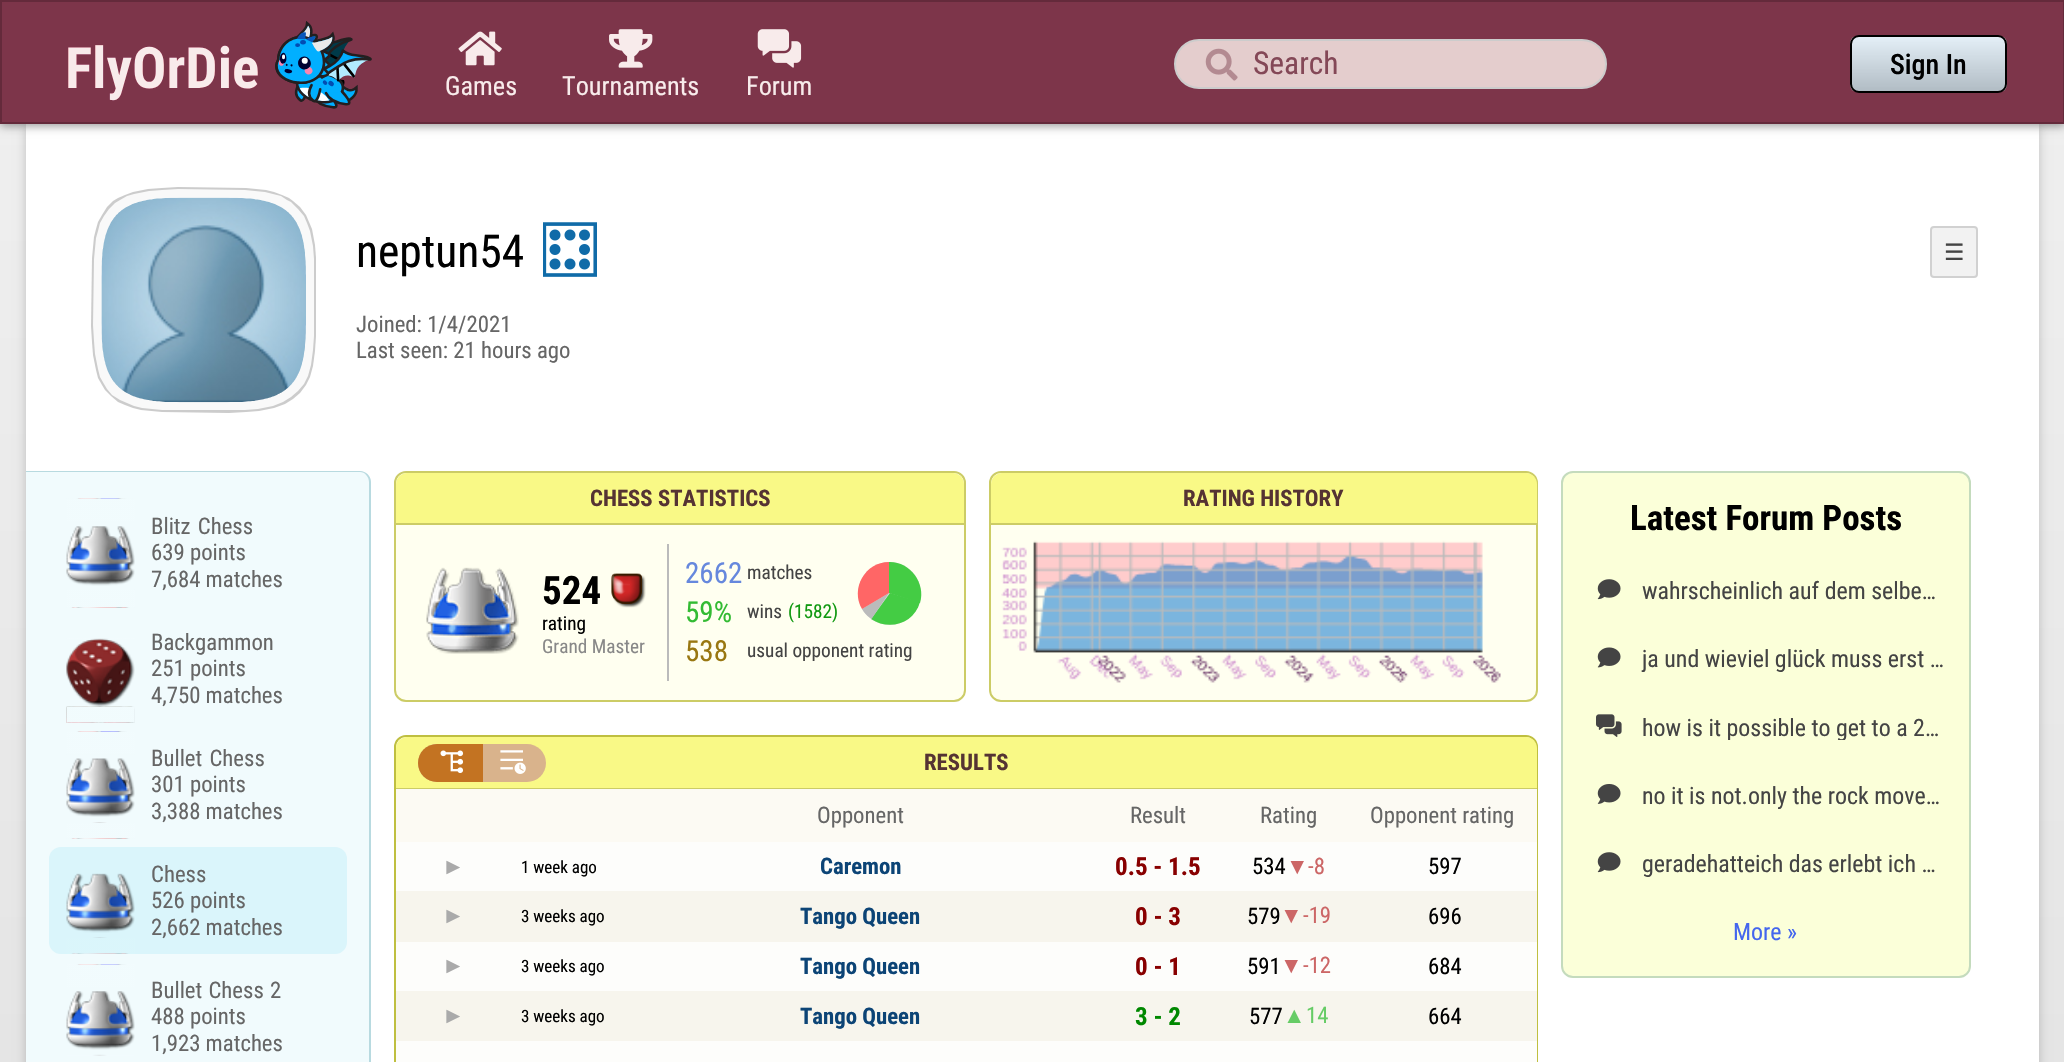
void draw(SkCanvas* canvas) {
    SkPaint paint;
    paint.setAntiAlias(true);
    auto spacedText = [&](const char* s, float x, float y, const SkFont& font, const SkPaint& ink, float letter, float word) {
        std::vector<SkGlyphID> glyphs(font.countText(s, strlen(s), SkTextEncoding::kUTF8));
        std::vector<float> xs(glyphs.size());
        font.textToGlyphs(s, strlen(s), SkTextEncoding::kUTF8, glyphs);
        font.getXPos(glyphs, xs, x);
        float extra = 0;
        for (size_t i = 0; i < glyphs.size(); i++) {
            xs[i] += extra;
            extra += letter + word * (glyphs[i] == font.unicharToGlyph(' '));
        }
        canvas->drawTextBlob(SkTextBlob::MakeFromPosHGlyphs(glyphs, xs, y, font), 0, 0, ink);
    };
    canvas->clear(0xFFFFFFFF);
    {
        const SkColor colors[] = {0xFFE5E5E5, 0xFFF0F0F0};
        const float stops[] = {0, 1};
        const SkPoint ends[] = {{1033, 1062}, {1033, 0}};
        paint.setShader(SkGradientShader::MakeLinear(ends, colors, stops, 2, SkTileMode::kClamp));
        paint.setAlpha(255);
    }
    canvas->drawRect(SkRect::MakeXYWH(0, 124, 2064, 938), paint);
    paint.setShader(nullptr);
    paint.setColor(0x33000000);
    paint.setMaskFilter(SkMaskFilter::MakeBlur(kNormal_SkBlurStyle, 5));
    canvas->drawRect(SkRect::MakeXYWH(26, 126, 2013, 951), paint);
    paint.setMaskFilter(nullptr);
    paint.setColor(0xFFFFFFFF);
    canvas->drawRect(SkRect::MakeXYWH(26, 124, 2013, 938), paint);
    paint.setColor(0x66000000);
    paint.setMaskFilter(SkMaskFilter::MakeBlur(kNormal_SkBlurStyle, 4.5f));
    canvas->drawRect(SkRect::MakeXYWH(0, 2, 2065, 124), paint);
    paint.setMaskFilter(nullptr);
    paint.setColor(0xFF7D354A);
    canvas->drawRect(SkRect::MakeXYWH(1, 1, 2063, 122), paint);
    paint.setStyle(SkPaint::kStroke_Style);
    paint.setStrokeWidth(2);
    paint.setColor(0xFF642A3B);
    canvas->drawRect(SkRect::MakeXYWH(1, 1, 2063, 122), paint);
    canvas->drawImageRect(SkImages::DeferredFromEncodedData(SkData::MakeFromFileName("img1.png")), SkRect::MakeXYWH(68, 21, 304, 88), SkSamplingOptions());
    paint.setStyle(SkPaint::kFill_Style);
    paint.setColor(0xFFE4CDCD);
    canvas->drawRoundRect(SkRect::MakeXYWH(1175, 40, 431, 48), 24, 24, paint);
    paint.setStyle(SkPaint::kStroke_Style);
    paint.setColor(0xFFCCCCCC);
    canvas->drawRoundRect(SkRect::MakeXYWH(1175, 40, 431, 48), 24, 24, paint);
    canvas->drawImageRect(SkImages::DeferredFromEncodedData(SkData::MakeFromFileName("img2.png")), SkRect::MakeXYWH(1205, 48, 33, 33), SkSamplingOptions());
    SkFont font1(fontMgr->matchFamilyStyle("Roboto Condensed", SkFontStyle::Normal()), 31.5f);
    font1.setSubpixel(true);
    paint.setStyle(SkPaint::kFill_Style);
    paint.setColor(0xFF844857);
    canvas->drawString("Search", 1253, 74, font1, paint);
    canvas->save();
    canvas->clipPath(SkPathBuilder().moveTo(1859, 35).lineTo(1998, 35).cubicTo(2003, 35, 2007, 39, 2007, 44).lineTo(2007, 84).cubicTo(2007, 89, 2003, 93, 1998, 93).lineTo(1859, 93).cubicTo(1854, 93, 1850, 89, 1850, 84).lineTo(1850, 44).cubicTo(1850, 39, 1854, 35, 1859, 35).close().detach(), true);
    {
        const SkColor colors[] = {0xFFFFFFFF, 0xFFBDBDBD};
        const float stops[] = {0, 1};
        const SkPoint ends[] = {{1929, 37}, {1929, 91}};
        paint.setShader(SkGradientShader::MakeLinear(ends, colors, stops, 2, SkTileMode::kClamp));
        paint.setAlpha(255);
    }
    canvas->drawRect(SkRect::MakeXYWH(1850, 37, 157, 54), paint);
    canvas->restore();
    paint.setShader(nullptr);
    paint.setColor(0x3B8AB9DB);
    canvas->drawRoundRect(SkRect::MakeXYWH(1851, 36, 155, 56), 8, 8, paint);
    paint.setStyle(SkPaint::kStroke_Style);
    paint.setColor(0xFF000000);
    canvas->drawRoundRect(SkRect::MakeXYWH(1851, 36, 155, 56), 8, 8, paint);
    SkFont font2(fontMgr->matchFamilyStyle("Roboto Condensed", SkFontStyle(500, SkFontStyle::kNormal_Width, SkFontStyle::kUpright_Slant)), 28);
    font2.setSubpixel(true);
    paint.setStyle(SkPaint::kFill_Style);
    canvas->drawString("Sign In", 1890, 74, font2, paint);
    canvas->drawImageRect(SkImages::DeferredFromEncodedData(SkData::MakeFromFileName("img3.png")), SkRect::MakeXYWH(458, 31, 44, 35), SkSamplingOptions());
    SkFont font3(fontMgr->matchFamilyStyle("Roboto Condensed", SkFontStyle::Normal()), 26.25f);
    font3.setSubpixel(true);
    paint.setColor(0xFFF8EBEB);
    canvas->drawString("Games", 445, 95, font3, paint);
    canvas->drawImageRect(SkImages::DeferredFromEncodedData(SkData::MakeFromFileName("img4.png")), SkRect::MakeXYWH(609, 29, 44, 39), SkSamplingOptions());
    canvas->drawString("Tournaments", 562, 95, font3, paint);
    canvas->drawImageRect(SkImages::DeferredFromEncodedData(SkData::MakeFromFileName("img5.png")), SkRect::MakeXYWH(757, 29, 45, 39), SkSamplingOptions());
    canvas->drawString("Forum", 746, 95, font3, paint);
    paint.setColor(0xFFCCCCCC);
    canvas->drawPath(SkPathBuilder().moveTo(316, 315).lineTo(316, 258).lineTo(315, 245).lineTo(312, 229).lineTo(309, 222).lineTo(306, 215).lineTo(300, 207).lineTo(293, 201).lineTo(289, 198).lineTo(282, 195).lineTo(274, 192).lineTo(266, 190).lineTo(246, 188).lineTo(178, 187).lineTo(162, 188).lineTo(148, 189).lineTo(133, 192).lineTo(125, 195).lineTo(118, 198).lineTo(113, 201).lineTo(107, 207).lineTo(102, 215).lineTo(98, 222).lineTo(96, 229).lineTo(94, 237).lineTo(92, 258).lineTo(91, 326).lineTo(92, 342).lineTo(93, 355).lineTo(96, 370).lineTo(98, 378).lineTo(102, 385).lineTo(105, 390).lineTo(111, 396).lineTo(118, 402).lineTo(125, 405).lineTo(133, 408).lineTo(141, 410).lineTo(162, 412).lineTo(229, 413).lineTo(246, 412).lineTo(259, 411).lineTo(274, 408).lineTo(285, 404).lineTo(293, 399).lineTo(300, 393).lineTo(306, 385).lineTo(310, 377).lineTo(313, 366).lineTo(315, 351).lineTo(316, 336).close().detach(), paint);
    paint.setColor(0xFFF9F9F9);
    canvas->drawPath(SkPathBuilder().moveTo(314, 315).lineTo(314, 259).lineTo(313, 246).lineTo(310, 231).lineTo(307, 223).lineTo(304, 216).lineTo(298, 209).lineTo(291, 202).lineTo(287, 200).lineTo(281, 196).lineTo(273, 194).lineTo(265, 192).lineTo(245, 190).lineTo(178, 189).lineTo(162, 190).lineTo(149, 191).lineTo(134, 194).lineTo(127, 196).lineTo(120, 200).lineTo(115, 203).lineTo(109, 209).lineTo(104, 216).lineTo(100, 223).lineTo(98, 231).lineTo(96, 238).lineTo(94, 259).lineTo(93, 325).lineTo(94, 341).lineTo(95, 354).lineTo(98, 369).lineTo(100, 377).lineTo(104, 384).lineTo(107, 389).lineTo(112, 395).lineTo(120, 400).lineTo(127, 403).lineTo(134, 406).lineTo(142, 408).lineTo(162, 410).lineTo(229, 410).lineTo(245, 410).lineTo(258, 409).lineTo(273, 406).lineTo(283, 402).lineTo(291, 397).lineTo(298, 391).lineTo(304, 384).lineTo(308, 376).lineTo(311, 365).lineTo(313, 350).lineTo(314, 336).close().detach(), paint);
    canvas->drawImageRect(SkImages::DeferredFromEncodedData(SkData::MakeFromFileName("img6.png")), SkRect::MakeXYWH(101, 197, 205, 206), SkSamplingOptions());
    SkFont font4(fontMgr->matchFamilyStyle("Roboto Condensed", SkFontStyle::Normal()), 45.5f);
    font4.setSubpixel(true);
    paint.setColor(0xFF000000);
    canvas->drawString("neptun54", 356, 267, font4, paint);
    canvas->drawImageRect(SkImages::DeferredFromEncodedData(SkData::MakeFromFileName("img7.png")), SkRect::MakeXYWH(543, 222, 54, 55), SkSamplingOptions());
    paint.setColor(0xFFF2F2F2);
    canvas->drawRoundRect(SkRect::MakeXYWH(1931, 227, 46, 50), 3, 3, paint);
    paint.setStyle(SkPaint::kStroke_Style);
    paint.setColor(0xFFD1D1D1);
    canvas->drawRoundRect(SkRect::MakeXYWH(1931, 227, 46, 50), 3, 3, paint);
    SkFont font5(fontMgr->matchFamilyStyle("DejaVu Sans", SkFontStyle::Normal()), 22.75f);
    font5.setSubpixel(true);
    paint.setStyle(SkPaint::kFill_Style);
    paint.setColor(0xFF444444);
    canvas->drawString("☰", 1944, 260, font5, paint);
    SkFont font6(fontMgr->matchFamilyStyle("Roboto Condensed", SkFontStyle::Normal()), 22.75f);
    font6.setSubpixel(true);
    paint.setColor(0xFF666666);
    canvas->drawString("Joined: 1/4/2021", 356, 332, font6, paint);
    canvas->drawString("Last seen: 21 hours ago", 356, 358, font6, paint);
    paint.setColor(0xFFF1FBFD);
    canvas->drawPath(SkPathBuilder().moveTo(26, 471).lineTo(359, 471).cubicTo(365.5f, 471, 371, 476.5f, 371, 483).lineTo(371, 1062).cubicTo(371, 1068.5f, 365.5f, 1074, 359, 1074).lineTo(26, 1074).close().detach(), paint);
    paint.setColor(0xFFB8DAE0);
    canvas->drawPath(SkPathBuilder(SkPathFillType::kEvenOdd).moveTo(26, 471).lineTo(360, 471).cubicTo(366, 471, 371, 476, 371, 482).lineTo(371, 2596).cubicTo(371, 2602, 366, 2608, 360, 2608).lineTo(26, 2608).close().moveTo(26, 472).lineTo(360, 472).cubicTo(365, 472, 369, 477, 369, 482).lineTo(369, 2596).cubicTo(369, 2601, 365, 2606, 360, 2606).lineTo(26, 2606).close().detach(), paint);
    canvas->drawImageRect(SkImages::DeferredFromEncodedData(SkData::MakeFromFileName("img8.png")), SkRect::MakeXYWH(66, 498, 69, 110), SkSamplingOptions());
    paint.setColor(0xFF666666);
    spacedText("Blitz Chess", 151, 534, font6, paint, 0, 2);
    canvas->drawString("639 points", 151, 560, font6, paint);
    canvas->drawString("7,684 matches", 151, 587, font6, paint);
    canvas->drawImageRect(SkImages::DeferredFromEncodedData(SkData::MakeFromFileName("img9.png")), SkRect::MakeXYWH(66, 638, 69, 85), SkSamplingOptions());
    canvas->drawString("Backgammon", 151, 650, font6, paint);
    canvas->drawString("251 points", 151, 676, font6, paint);
    canvas->drawString("4,750 matches", 151, 703, font6, paint);
    canvas->drawImageRect(SkImages::DeferredFromEncodedData(SkData::MakeFromFileName("img10.png")), SkRect::MakeXYWH(66, 731, 69, 108), SkSamplingOptions());
    spacedText("Bullet Chess", 151, 766, font6, paint, 0, 2);
    canvas->drawString("301 points", 151, 792, font6, paint);
    canvas->drawString("3,388 matches", 151, 819, font6, paint);
    paint.setColor(0xFFDAF5FB);
    canvas->drawRoundRect(SkRect::MakeXYWH(49, 847, 298, 107), 12, 12, paint);
    canvas->drawImageRect(SkImages::DeferredFromEncodedData(SkData::MakeFromFileName("img11.png")), SkRect::MakeXYWH(66, 873, 69, 81), SkSamplingOptions());
    paint.setColor(0xFF666666);
    canvas->drawString("Chess", 151, 882, font6, paint);
    canvas->drawString("526 points", 151, 908, font6, paint);
    canvas->drawString("2,662 matches", 151, 935, font6, paint);
    canvas->drawImageRect(SkImages::DeferredFromEncodedData(SkData::MakeFromFileName("img12.png")), SkRect::MakeXYWH(66, 964, 69, 92), SkSamplingOptions());
    spacedText("Bullet Chess 2", 151, 998, font6, paint, 0, 1);
    canvas->drawString("488 points", 151, 1024, font6, paint);
    canvas->drawString("1,923 matches", 151, 1051, font6, paint);
    paint.setColor(0xFFFFFFF0);
    canvas->drawRoundRect(SkRect::MakeXYWH(395, 472, 570, 229), 11, 11, paint);
    paint.setStyle(SkPaint::kStroke_Style);
    paint.setColor(0xFFCCCC66);
    canvas->drawRoundRect(SkRect::MakeXYWH(395, 472, 570, 229), 11, 11, paint);
    paint.setStyle(SkPaint::kFill_Style);
    paint.setColor(0xFFF9F986);
    canvas->drawPath(SkPathBuilder().moveTo(407, 473).lineTo(953, 473).cubicTo(959, 473, 964, 478, 964, 484).lineTo(964, 525).lineTo(396, 525).lineTo(396, 484).cubicTo(396, 478, 401, 473, 407, 473).close().detach(), paint);
    paint.setColor(0xFFCCCC66);
    canvas->drawRect(SkRect::MakeXYWH(396, 523, 568, 2), paint);
    SkFont font7(fontMgr->matchFamilyStyle("Roboto Condensed", SkFontStyle::Bold()), 22.75f);
    font7.setSubpixel(true);
    paint.setColor(0xFF553333);
    canvas->drawString("CHESS STATISTICS", 590, 506, font7, paint);
    canvas->drawImageRect(SkImages::DeferredFromEncodedData(SkData::MakeFromFileName("img13.png")), SkRect::MakeXYWH(426, 567, 93, 87), SkSamplingOptions());
    SkFont font8(fontMgr->matchFamilyStyle("Roboto Condensed", SkFontStyle::Bold()), 39);
    font8.setSubpixel(true);
    paint.setColor(0xFF000000);
    canvas->drawString("524", 542, 604, font8, paint);
    canvas->drawImageRect(SkImages::DeferredFromEncodedData(SkData::MakeFromFileName("img14.png")), SkRect::MakeXYWH(611, 573, 35, 35), SkSamplingOptions());
    SkFont font9(fontMgr->matchFamilyStyle("Roboto Condensed", SkFontStyle::Normal()), 19.25f);
    font9.setSubpixel(true);
    canvas->drawString("rating", 542, 630, font9, paint);
    paint.setColor(0xFF888888);
    canvas->drawString("Grand Master", 542, 653, font9, paint);
    paint.setColor(0xFFBBBBBB);
    canvas->drawRect(SkRect::MakeXYWH(667, 544, 2, 137), paint);
    SkFont font10(fontMgr->matchFamilyStyle("Roboto Condensed", SkFontStyle::Normal()), 29);
    font10.setSubpixel(true);
    paint.setColor(0xFF6688DD);
    canvas->drawString("2662", 685, 583, font10, paint);
    paint.setColor(0xFF444444);
    canvas->drawString("matches", 747, 579, font9, paint);
    paint.setColor(0xFFDDDDDD);
    canvas->drawCircle(889.5f, 593.5f, 31.5f, paint);
    paint.setColor(0xFF44CC44);
    canvas->drawPath(SkPathBuilder().moveTo(890, 562).cubicTo(910, 562, 926, 583, 920, 603).lineTo(889, 593).lineTo(889, 562).close().detach(), paint);
    canvas->drawPath(SkPathBuilder().moveTo(871, 619).cubicTo(889, 631, 914, 624, 920, 602).lineTo(890, 593).close().detach(), paint);
    paint.setColor(0xFFBBBBBB);
    canvas->drawPath(SkPathBuilder().moveTo(871.5f, 619).lineTo(889, 593).lineTo(862, 609).cubicTo(864, 612.5f, 866.5f, 615.5f, 869.5f, 617.5f).close().detach(), paint);
    paint.setColor(0xFFFF6666);
    canvas->drawPath(SkPathBuilder().moveTo(889, 562).lineTo(889, 593).lineTo(862, 609).cubicTo(850, 589, 865, 562, 889, 562).close().detach(), paint);
    paint.setColor(0xFF33BB33);
    canvas->drawString("59%", 685, 622, font10, paint);
    paint.setColor(0xFF444444);
    canvas->drawString("wins", 747, 618, font9, paint);
    paint.setColor(0xFF119911);
    canvas->drawString("(1582)", 788, 618, font9, paint);
    paint.setColor(0xFF997711);
    canvas->drawString("538", 685, 661, font10, paint);
    paint.setColor(0xFF444444);
    canvas->drawString("usual opponent rating", 747, 657, font9, paint);
    paint.setColor(0xFFFFFFF0);
    canvas->drawRoundRect(SkRect::MakeXYWH(990, 472, 547, 229), 11, 11, paint);
    paint.setStyle(SkPaint::kStroke_Style);
    paint.setColor(0xFFCCCC66);
    canvas->drawRoundRect(SkRect::MakeXYWH(990, 472, 547, 229), 11, 11, paint);
    paint.setStyle(SkPaint::kFill_Style);
    paint.setColor(0xFFF9F986);
    canvas->drawPath(SkPathBuilder().moveTo(1002, 473).lineTo(1526, 473).cubicTo(1532, 473, 1537, 478, 1537, 484).lineTo(1537, 525).lineTo(991, 525).lineTo(991, 484).cubicTo(991, 478, 996, 473, 1002, 473).close().detach(), paint);
    paint.setColor(0xFFCCCC66);
    canvas->drawRect(SkRect::MakeXYWH(991, 523, 546, 2), paint);
    paint.setColor(0xFF553333);
    canvas->drawString("RATING HISTORY", 1183, 506, font7, paint);
    canvas->drawImageRect(SkImages::DeferredFromEncodedData(SkData::MakeFromFileName("img15.png")), SkRect::MakeXYWH(1001, 540, 500, 143), SkSamplingOptions());
    paint.setStyle(SkPaint::kStroke_Style);
    paint.setColor(0xFFBFBF40);
    canvas->drawRoundRect(SkRect::MakeXYWH(395, 736, 1142, 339), 11, 11, paint);
    paint.setStyle(SkPaint::kFill_Style);
    paint.setColor(0xFFF9F986);
    canvas->drawPath(SkPathBuilder().moveTo(407, 737).lineTo(1526, 737).cubicTo(1532, 737, 1537, 742, 1537, 748).lineTo(1537, 789).lineTo(396, 789).lineTo(396, 748).cubicTo(396, 742, 401, 737, 407, 737).close().detach(), paint);
    paint.setColor(0xFFCCCC66);
    canvas->drawRect(SkRect::MakeXYWH(396, 788, 1141, 1), paint);
    paint.setColor(0xFFD9B38C);
    canvas->drawRoundRect(SkRect::MakeXYWH(418, 744, 128, 38), 19, 19, paint);
    paint.setColor(0xFFC37322);
    canvas->drawPath(SkPathBuilder().moveTo(437, 744).lineTo(483, 744).lineTo(483, 782).lineTo(437, 782).cubicTo(426.5f, 782, 418, 773.5f, 418, 763).cubicTo(418, 752.5f, 426.5f, 744, 437, 744).close().detach(), paint);
    canvas->drawImageRect(SkImages::DeferredFromEncodedData(SkData::MakeFromFileName("img16.png")), SkRect::MakeXYWH(440, 750, 24, 23), SkSamplingOptions());
    canvas->drawImageRect(SkImages::DeferredFromEncodedData(SkData::MakeFromFileName("img17.png")), SkRect::MakeXYWH(500, 750, 26, 24), SkSamplingOptions());
    paint.setColor(0xFF553333);
    canvas->drawString("RESULTS", 924, 770, font7, paint);
    paint.setColor(0xFFFCFAF3);
    canvas->drawRect(SkRect::MakeXYWH(396, 789, 1141, 53), paint);
    paint.setColor(0xFF666666);
    canvas->drawString("Opponent", 817, 823, font6, paint);
    canvas->drawString("Result", 1130, 823, font6, paint);
    canvas->drawString("Rating", 1260, 823, font6, paint);
    canvas->drawString("Opponent rating", 1370, 823, font6, paint);
    paint.setColor(0xFFFDFDFB);
    canvas->drawRect(SkRect::MakeXYWH(396, 842, 1141, 49), paint);
    SkFont font11(fontMgr->matchFamilyStyle("Liberation Serif", SkFontStyle::Normal()), 22.75f);
    font11.setSubpixel(true);
    paint.setColor(0xFFAAAAAA);
    canvas->drawString("►", 442, 874, font11, paint);
    SkFont font12(fontMgr->matchFamilyStyle("Roboto Condensed", SkFontStyle::Normal()), 17);
    font12.setSubpixel(true);
    paint.setColor(0xFF000000);
    canvas->drawString("1 week ago", 521, 873, font12, paint);
    paint.setColor(0xFF0C4476);
    canvas->drawString("Caremon", 820, 874, font7, paint);
    SkFont font13(fontMgr->matchFamilyStyle("Roboto Condensed", SkFontStyle::Bold()), 25);
    font13.setSubpixel(true);
    paint.setColor(0xFF880000);
    canvas->drawString("0.5 - 1.5", 1115, 875, font13, paint);
    paint.setColor(0xFF000000);
    canvas->drawString("534", 1252, 874, font6, paint);
    paint.setColor(0xFFCC6666);
    canvas->drawString("▼", 1286, 874, font11, paint);
    canvas->drawString("-8", 1308, 874, font6, paint);
    paint.setColor(0xFF000000);
    canvas->drawString("597", 1428, 874, font6, paint);
    paint.setColor(0xFFF7F5ED);
    canvas->drawRect(SkRect::MakeXYWH(396, 891, 1141, 51), paint);
    paint.setColor(0xFFAAAAAA);
    canvas->drawString("►", 442, 923, font11, paint);
    paint.setColor(0xFF000000);
    canvas->drawString("3 weeks ago", 521, 922, font12, paint);
    paint.setColor(0xFF0C4476);
    canvas->drawString("Tango Queen", 800, 924, font7, paint);
    paint.setColor(0xFF880000);
    canvas->drawString("0 - 3", 1135, 925, font13, paint);
    paint.setColor(0xFF000000);
    canvas->drawString("579", 1247, 924, font6, paint);
    paint.setColor(0xFFCC6666);
    canvas->drawString("▼", 1280, 923, font11, paint);
    canvas->drawString("-19", 1303, 923, font6, paint);
    paint.setColor(0xFF000000);
    canvas->drawString("696", 1428, 924, font6, paint);
    paint.setColor(0xFFFDFDFB);
    canvas->drawRect(SkRect::MakeXYWH(396, 942, 1141, 49), paint);
    paint.setColor(0xFFAAAAAA);
    canvas->drawString("►", 442, 973, font11, paint);
    paint.setColor(0xFF000000);
    canvas->drawString("3 weeks ago", 521, 972, font12, paint);
    paint.setColor(0xFF0C4476);
    canvas->drawString("Tango Queen", 800, 974, font7, paint);
    paint.setColor(0xFF880000);
    canvas->drawString("0 - 1", 1135, 975, font13, paint);
    paint.setColor(0xFF000000);
    canvas->drawString("591", 1247, 974, font6, paint);
    paint.setColor(0xFFCC6666);
    canvas->drawString("▼", 1280, 973, font11, paint);
    canvas->drawString("-12", 1303, 973, font6, paint);
    paint.setColor(0xFF000000);
    canvas->drawString("684", 1428, 974, font6, paint);
    paint.setColor(0xFFF7F5ED);
    canvas->drawRect(SkRect::MakeXYWH(396, 991, 1141, 50), paint);
    paint.setColor(0xFFAAAAAA);
    canvas->drawString("►", 442, 1023, font11, paint);
    paint.setColor(0xFF000000);
    canvas->drawString("3 weeks ago", 521, 1022, font12, paint);
    paint.setColor(0xFF0C4476);
    canvas->drawString("Tango Queen", 800, 1024, font7, paint);
    paint.setColor(0xFF008800);
    canvas->drawString("3 - 2", 1135, 1025, font13, paint);
    paint.setColor(0xFF000000);
    canvas->drawString("577", 1249, 1024, font6, paint);
    paint.setColor(0xFF66CC66);
    canvas->drawString("▲", 1283, 1023, font11, paint);
    canvas->drawString("14", 1306, 1023, font6, paint);
    paint.setColor(0xFF000000);
    canvas->drawString("664", 1428, 1024, font6, paint);
    paint.setColor(0xFFFDFDFB);
    canvas->drawRect(SkRect::MakeXYWH(396, 1041, 1141, 21), paint);
    paint.setColor(0xFFFBFFD9);
    canvas->drawRoundRect(SkRect::MakeXYWH(1562, 472, 408, 505), 11, 11, paint);
    paint.setStyle(SkPaint::kStroke_Style);
    paint.setColor(0xFFC4DBBD);
    canvas->drawRoundRect(SkRect::MakeXYWH(1562, 472, 408, 505), 11, 11, paint);
    SkFont font14(fontMgr->matchFamilyStyle("Roboto Condensed", SkFontStyle::Bold()), 35);
    font14.setSubpixel(true);
    paint.setStyle(SkPaint::kFill_Style);
    paint.setColor(0xFF000000);
    canvas->drawString("Latest Forum Posts", 1630, 530, font14, paint);
    canvas->drawImageRect(SkImages::DeferredFromEncodedData(SkData::MakeFromFileName("img18.png")), SkRect::MakeXYWH(1597, 579, 24, 21), SkSamplingOptions());
    SkFont font15(fontMgr->matchFamilyStyle("Roboto Condensed", SkFontStyle::Normal()), 23.9f);
    font15.setSubpixel(true);
    paint.setColor(0xFF444444);
    canvas->drawString("wahrscheinlich auf dem selbe…", 1642, 599, font15, paint);
    canvas->drawImageRect(SkImages::DeferredFromEncodedData(SkData::MakeFromFileName("img19.png")), SkRect::MakeXYWH(1597, 647, 24, 21), SkSamplingOptions());
    canvas->drawString("ja und wieviel glück muss erst …", 1642, 667, font15, paint);
    canvas->drawImageRect(SkImages::DeferredFromEncodedData(SkData::MakeFromFileName("img20.png")), SkRect::MakeXYWH(1596, 714, 26, 23), SkSamplingOptions());
    canvas->save();
    canvas->clipRect(SkRect::MakeXYWH(1643, 712, 303, 28));
    canvas->drawString("how is it possible to get to a 2…", 1642, 736, font15, paint);
    canvas->restore();
    canvas->drawImageRect(SkImages::DeferredFromEncodedData(SkData::MakeFromFileName("img21.png")), SkRect::MakeXYWH(1597, 784, 24, 20), SkSamplingOptions());
    canvas->drawString("no it is not.only the rock move…", 1642, 804, font15, paint);
    canvas->drawImageRect(SkImages::DeferredFromEncodedData(SkData::MakeFromFileName("img18.png")), SkRect::MakeXYWH(1597, 852, 24, 21), SkSamplingOptions());
    canvas->drawString("geradehatteich das erlebt ich …", 1642, 872, font15, paint);
    paint.setColor(0xFF4466EE);
    canvas->drawString("More »", 1733, 940, font15, paint);
}
